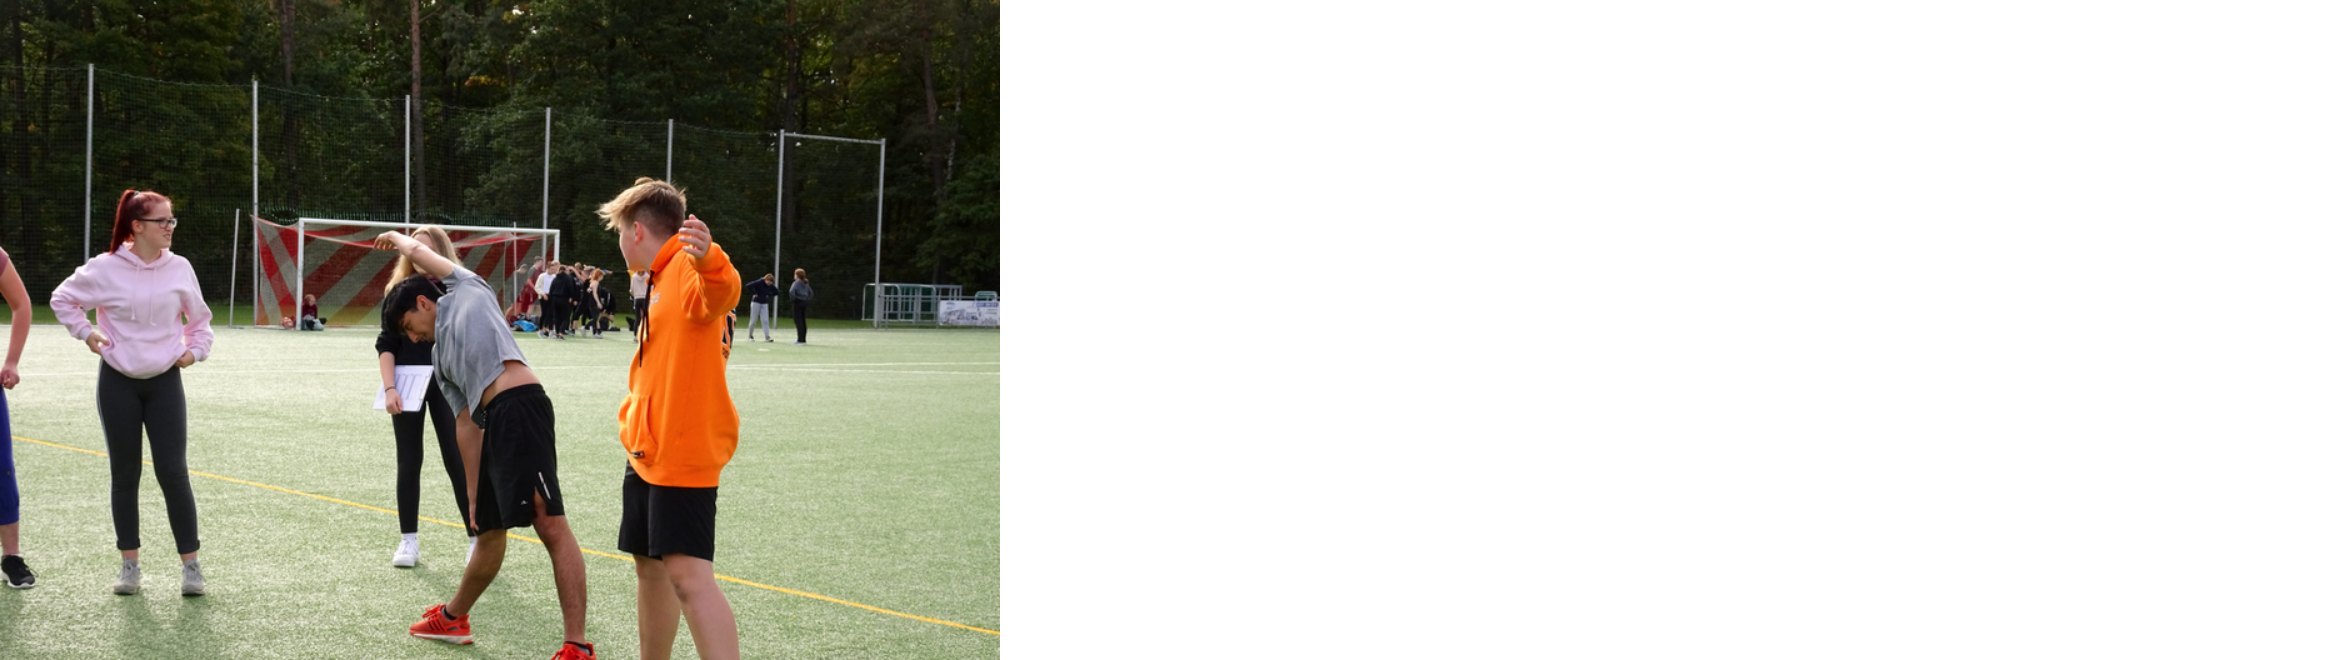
void draw(SkCanvas* canvas) {
    SkPaint paint;
    paint.setAntiAlias(true);
    canvas->clear(0xFFFFFFFF);
    canvas->drawImageRect(SkImages::DeferredFromEncodedData(SkData::MakeFromFileName("img1.png")), SkRect::MakeXYWH(0, 0, 1000, 660), SkSamplingOptions());
}
